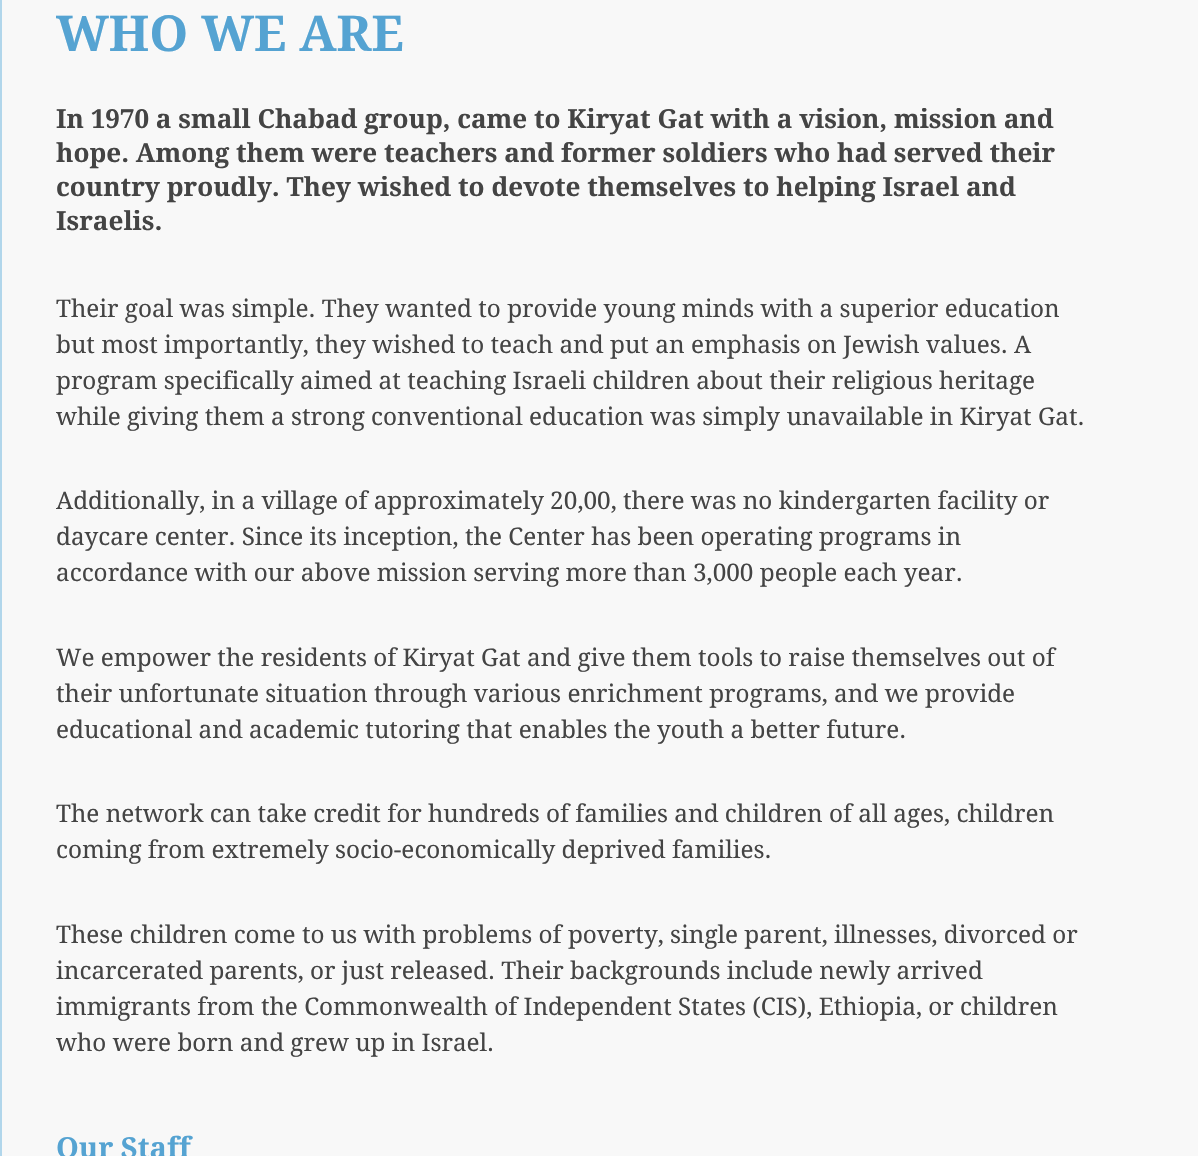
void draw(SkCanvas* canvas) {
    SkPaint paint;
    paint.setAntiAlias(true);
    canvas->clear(0xFFF8F8F8);
    paint.setColor(0xFFB1D6EB);
    canvas->drawRect(SkRect::MakeXYWH(0, 0, 2, 1156), paint);
    SkFont font1(fontMgr->matchFamilyStyle("Droid Serif", SkFontStyle::Bold()), 49.5f);
    font1.setSubpixel(true);
    paint.setColor(0xFF55A3D2);
    canvas->drawString("WHO WE ARE", 56, 51, font1, paint);
    SkFont font2(fontMgr->matchFamilyStyle("Droid Serif", SkFontStyle::Bold()), 26.1f);
    font2.setSubpixel(true);
    paint.setColor(0xFF444444);
    canvas->drawString("In 1970 a small Chabad group, came to Kiryat Gat with a vision, mission and", 56, 128, font2, paint);
    canvas->drawString("hope. Among them were teachers and former soldiers who had served their", 56, 162, font2, paint);
    canvas->drawString("country proudly. They wished to devote themselves to helping Israel and", 56, 196, font2, paint);
    canvas->drawString("Israelis.", 56, 230, font2, paint);
    SkFont font3(fontMgr->matchFamilyStyle("Droid Serif", SkFontStyle::Normal()), 24.3f);
    font3.setSubpixel(true);
    canvas->drawString("Their goal was simple. They wanted to provide young minds with a superior education", 56, 317, font3, paint);
    canvas->drawString("but most importantly, they wished to teach and put an emphasis on Jewish values. A", 56, 353, font3, paint);
    canvas->drawString("program specifically aimed at teaching Israeli children about their religious heritage", 56, 389, font3, paint);
    canvas->drawString("while giving them a strong conventional education was simply unavailable in Kiryat Gat.", 56, 425, font3, paint);
    canvas->drawString("Additionally, in a village of approximately 20,00, there was no kindergarten facility or", 56, 509, font3, paint);
    canvas->drawString("daycare center. Since its inception, the Center has been operating programs in", 56, 545, font3, paint);
    canvas->drawString("accordance with our above mission serving more than 3,000 people each year.", 56, 581, font3, paint);
    canvas->drawString("We empower the residents of Kiryat Gat and give them tools to raise themselves out of", 56, 666, font3, paint);
    canvas->drawString("their unfortunate situation through various enrichment programs, and we provide", 56, 702, font3, paint);
    canvas->drawString("educational and academic tutoring that enables the youth a better future.", 56, 738, font3, paint);
    canvas->drawString("The network can take credit for hundreds of families and children of all ages, children", 56, 822, font3, paint);
    canvas->drawString("coming from extremely socio-economically deprived families.", 56, 858, font3, paint);
    canvas->drawString("These children come to us with problems of poverty, single parent, illnesses, divorced or", 56, 943, font3, paint);
    canvas->drawString("incarcerated parents, or just released. Their backgrounds include newly arrived", 56, 979, font3, paint);
    canvas->drawString("immigrants from the Commonwealth of Independent States (CIS), Ethiopia, or children", 56, 1015, font3, paint);
    canvas->drawString("who were born and grew up in Israel.", 56, 1051, font3, paint);
    SkFont font4(fontMgr->matchFamilyStyle("Droid Serif", SkFontStyle::Bold()), 29);
    font4.setSubpixel(true);
    paint.setColor(0xFF55A3D2);
    canvas->drawString("Our Staff", 56, 1158, font4, paint);
}
